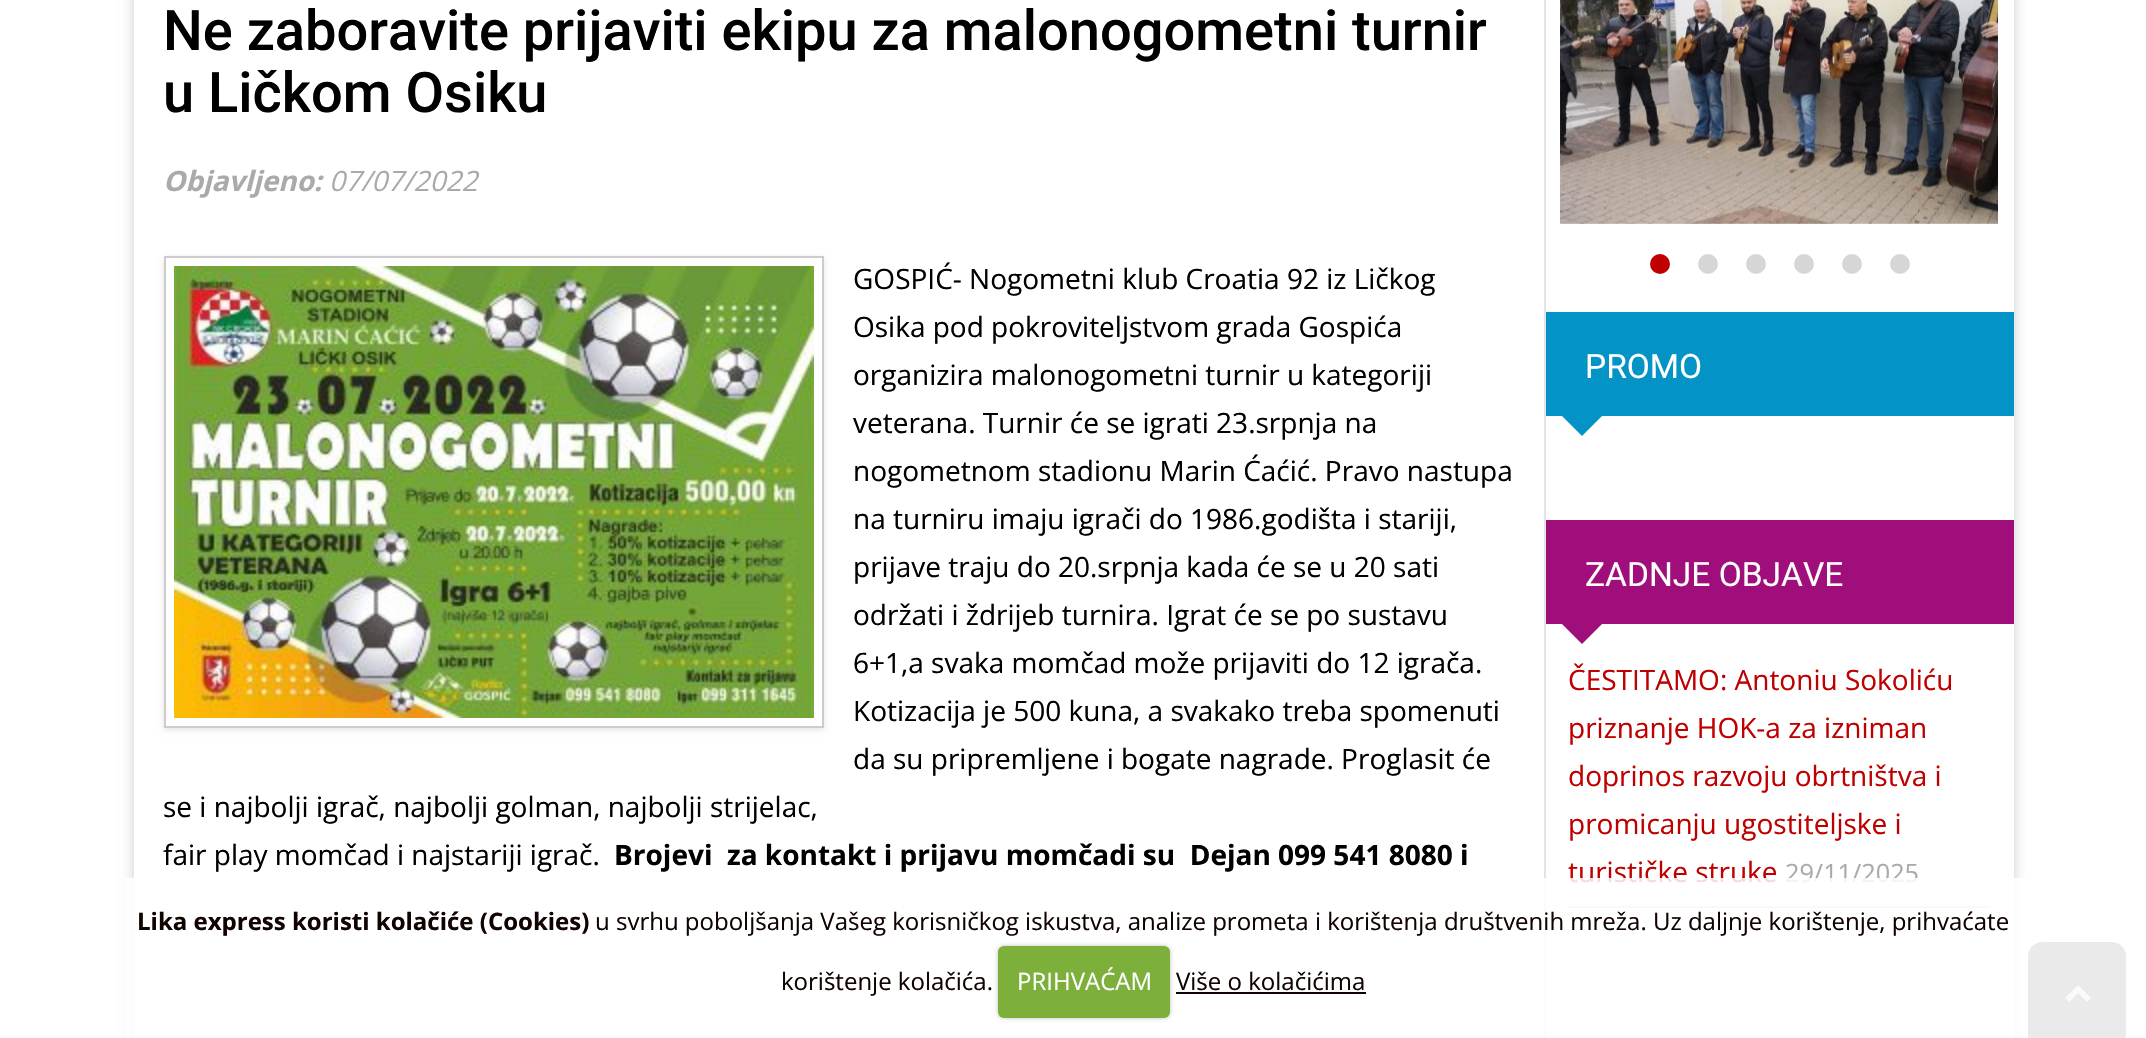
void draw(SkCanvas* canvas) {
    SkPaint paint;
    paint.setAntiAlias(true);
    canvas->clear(0xFFFFFFFF);
    canvas->save();
    canvas->clipPath(SkPathBuilder(SkPathFillType::kEvenOdd).moveTo(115, 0).lineTo(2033, 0).lineTo(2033, 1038).lineTo(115, 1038).close().moveTo(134, -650).lineTo(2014, -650).lineTo(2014, 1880).lineTo(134, 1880).close().detach(), true);
    paint.setColor(0x33000000);
    paint.setMaskFilter(SkMaskFilter::MakeBlur(kNormal_SkBlurStyle, 6));
    canvas->drawRect(SkRect::MakeXYWH(134, -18, 1880, 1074), paint);
    paint.setMaskFilter(nullptr);
    canvas->restore();
    SkFont font1(fontMgr->matchFamilyStyle("Roboto", SkFontStyle(500, SkFontStyle::kNormal_Width, SkFontStyle::kUpright_Slant)), 56);
    font1.setSubpixel(true);
    paint.setColor(0xFF000000);
    canvas->drawString("Ne zaboravite prijaviti ekipu za malonogometni turnir", 163, 50, font1, paint);
    canvas->drawString("u Ličkom Osiku", 163, 112, font1, paint);
    SkFont font2(fontMgr->matchFamilyStyle("Open Sans", SkFontStyle::BoldItalic()), 28);
    font2.setSubpixel(true);
    paint.setColor(0xFFAAAAAA);
    canvas->drawString("Objavljeno:", 163, 191, font2, paint);
    SkFont font3(fontMgr->matchFamilyStyle("Open Sans", SkFontStyle::Italic()), 28);
    font3.setSubpixel(true);
    canvas->drawString("07/07/2022", 329, 191, font3, paint);
    canvas->save();
    canvas->clipPath(SkPathBuilder(SkPathFillType::kEvenOdd).moveTo(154, 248).lineTo(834, 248).lineTo(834, 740).lineTo(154, 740).close().moveTo(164, 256).lineTo(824, 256).lineTo(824, 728).lineTo(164, 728).close().detach(), true);
    paint.setColor(0x1A000000);
    paint.setMaskFilter(SkMaskFilter::MakeBlur(kNormal_SkBlurStyle, 3));
    canvas->drawRect(SkRect::MakeXYWH(164, 258, 660, 472), paint);
    paint.setMaskFilter(nullptr);
    canvas->restore();
    paint.setStyle(SkPaint::kStroke_Style);
    paint.setStrokeWidth(2);
    paint.setColor(0xFFCCCCCC);
    canvas->drawRect(SkRect::MakeXYWH(165, 257, 658, 470), paint);
    canvas->drawImageRect(SkImages::DeferredFromEncodedData(SkData::MakeFromFileName("img1.png")), SkRect::MakeXYWH(174, 266, 640, 452), SkSamplingOptions());
    SkFont font4(fontMgr->matchFamilyStyle("Open Sans", SkFontStyle::Normal()), 28);
    font4.setSubpixel(true);
    paint.setStyle(SkPaint::kFill_Style);
    paint.setColor(0xFF000000);
    canvas->drawString("GOSPIĆ- Nogometni klub Croatia 92 iz Ličkog", 853, 289, font4, paint);
    canvas->drawString("Osika pod pokroviteljstvom grada Gospića", 853, 337, font4, paint);
    canvas->drawString("organizira malonogometni turnir u kategoriji", 853, 385, font4, paint);
    canvas->drawString("veterana. Turnir će se igrati 23.srpnja na", 853, 433, font4, paint);
    canvas->drawString("nogometnom stadionu Marin Ćaćić. Pravo nastupa", 853, 481, font4, paint);
    canvas->drawString("na turniru imaju igrači do 1986.godišta i stariji,", 853, 529, font4, paint);
    canvas->drawString("prijave traju do 20.srpnja kada će se u 20 sati", 853, 577, font4, paint);
    canvas->drawString("održati i ždrijeb turnira. Igrat će se po sustavu", 853, 625, font4, paint);
    canvas->drawString("6+1,a svaka momčad može prijaviti do 12 igrača.", 853, 673, font4, paint);
    canvas->drawString("Kotizacija je 500 kuna, a svakako treba spomenuti", 853, 721, font4, paint);
    canvas->drawString("da su pripremljene i bogate nagrade. Proglasit će", 853, 769, font4, paint);
    canvas->drawString("se i najbolji igrač, najbolji golman, najbolji strijelac,", 163, 817, font4, paint);
    canvas->drawString("fair play momčad i najstariji igrač.", 163, 865, font4, paint);
    SkFont font5(fontMgr->matchFamilyStyle("Open Sans", SkFontStyle::Bold()), 28);
    font5.setSubpixel(true);
    canvas->drawString("Brojevi  za kontakt i prijavu momčadi su  Dejan 099 541 8080 i", 614, 865, font5, paint);
    paint.setColor(0xFFE4E4E4);
    canvas->drawRect(SkRect::MakeXYWH(1544, 0, 2, 1038), paint);
    canvas->drawImageRect(SkImages::DeferredFromEncodedData(SkData::MakeFromFileName("img2.png")), SkRect::MakeXYWH(1560, 0, 438, 224), SkSamplingOptions());
    paint.setColor(0xFFBF0000);
    canvas->drawCircle(1660, 264, 10, paint);
    paint.setColor(0xFFD6D6D6);
    canvas->drawCircle(1708, 264, 10, paint);
    canvas->drawCircle(1756, 264, 10, paint);
    canvas->drawCircle(1804, 264, 10, paint);
    canvas->drawCircle(1852, 264, 10, paint);
    canvas->drawCircle(1900, 264, 10, paint);
    paint.setColor(0xFF0393C6);
    canvas->drawRect(SkRect::MakeXYWH(1546, 312, 468, 104), paint);
    SkFont font6(fontMgr->matchFamilyStyle("Roboto", SkFontStyle::Normal()), 33.5f);
    font6.setSubpixel(true);
    paint.setColor(0xFFFFFFFF);
    canvas->drawString("PROMO", 1585, 378, font6, paint);
    paint.setColor(0xFF0393C6);
    canvas->drawPath(SkPathBuilder().moveTo(1562, 416).lineTo(1602, 416).lineTo(1582, 436).close().detach(), paint);
    paint.setColor(0xFF9F0E7B);
    canvas->drawRect(SkRect::MakeXYWH(1546, 520, 468, 104), paint);
    paint.setColor(0xFFFFFFFF);
    canvas->drawString("ZADNJE OBJAVE", 1585, 586, font6, paint);
    paint.setColor(0xFF9F0E7B);
    canvas->drawPath(SkPathBuilder().moveTo(1562, 624).lineTo(1602, 624).lineTo(1582, 644).close().detach(), paint);
    paint.setColor(0xFFD2D2D2);
    canvas->drawRect(SkRect::MakeXYWH(1568, 906, 422, 2), paint);
    paint.setColor(0xFFBF0000);
    canvas->drawString("ČESTITAMO: Antoniu Sokoliću", 1568, 690, font4, paint);
    canvas->drawString("priznanje HOK-a za izniman", 1568, 738, font4, paint);
    canvas->drawString("doprinos razvoju obrtništva i", 1568, 786, font4, paint);
    canvas->drawString("promicanju ugostiteljske i", 1568, 834, font4, paint);
    canvas->drawString("turističke struke", 1568, 882, font4, paint);
    SkFont font7(fontMgr->matchFamilyStyle("Open Sans", SkFontStyle::Normal()), 25.25f);
    font7.setSubpixel(true);
    paint.setColor(0xFFAAAAAA);
    canvas->drawString("29/11/2025", 1785, 882, font7, paint);
    paint.setColor(0xFF707070);
    canvas->drawPath(SkPathBuilder().moveTo(2042, 942).lineTo(2112, 942).cubicTo(2119.5f, 942, 2126, 948.5f, 2126, 956).lineTo(2126, 1038).lineTo(2028, 1038).lineTo(2028, 956).cubicTo(2028, 948.5f, 2034.5f, 942, 2042, 942).close().detach(), paint);
    canvas->drawImageRect(SkImages::DeferredFromEncodedData(SkData::MakeFromFileName("img3.png")), SkRect::MakeXYWH(2065, 985, 26, 17), SkSamplingOptions());
    paint.setColor(0xD9FFFFFF);
    canvas->drawRect(SkRect::MakeXYWH(125, 878, 2001, 160), paint);
    SkFont font8(fontMgr->matchFamilyStyle("Open Sans", SkFontStyle::Bold()), 24);
    font8.setSubpixel(true);
    paint.setColor(0xFF110300);
    canvas->drawString("Lika express koristi kolačiće (Cookies)", 137, 930, font8, paint);
    SkFont font9(fontMgr->matchFamilyStyle("Open Sans", SkFontStyle::Normal()), 24);
    font9.setSubpixel(true);
    canvas->drawString("u svrhu poboljšanja Vašeg korisničkog iskustva, analize prometa i korištenja društvenih mreža. Uz daljnje korištenje, prihvaćate", 595, 930, font9, paint);
    canvas->drawString("korištenje kolačića.", 781, 990, font9, paint);
    paint.setColor(0x40000000);
    paint.setMaskFilter(SkMaskFilter::MakeBlur(kNormal_SkBlurStyle, 2));
    canvas->drawRoundRect(SkRect::MakeXYWH(998, 946, 172, 72), 6, 6, paint);
    paint.setMaskFilter(nullptr);
    paint.setColor(0xFF7DAF3B);
    canvas->drawRoundRect(SkRect::MakeXYWH(998, 946, 172, 72), 6, 6, paint);
    paint.setColor(0xFFFFFFFF);
    canvas->drawString("PRIHVAĆAM", 1017, 990, font9, paint);
    paint.setColor(0xFF110300);
    canvas->drawString("Više o kolačićima", 1176, 990, font9, paint);
    canvas->drawRect(SkRect::MakeXYWH(1176, 992, 190, 2), paint);
}
